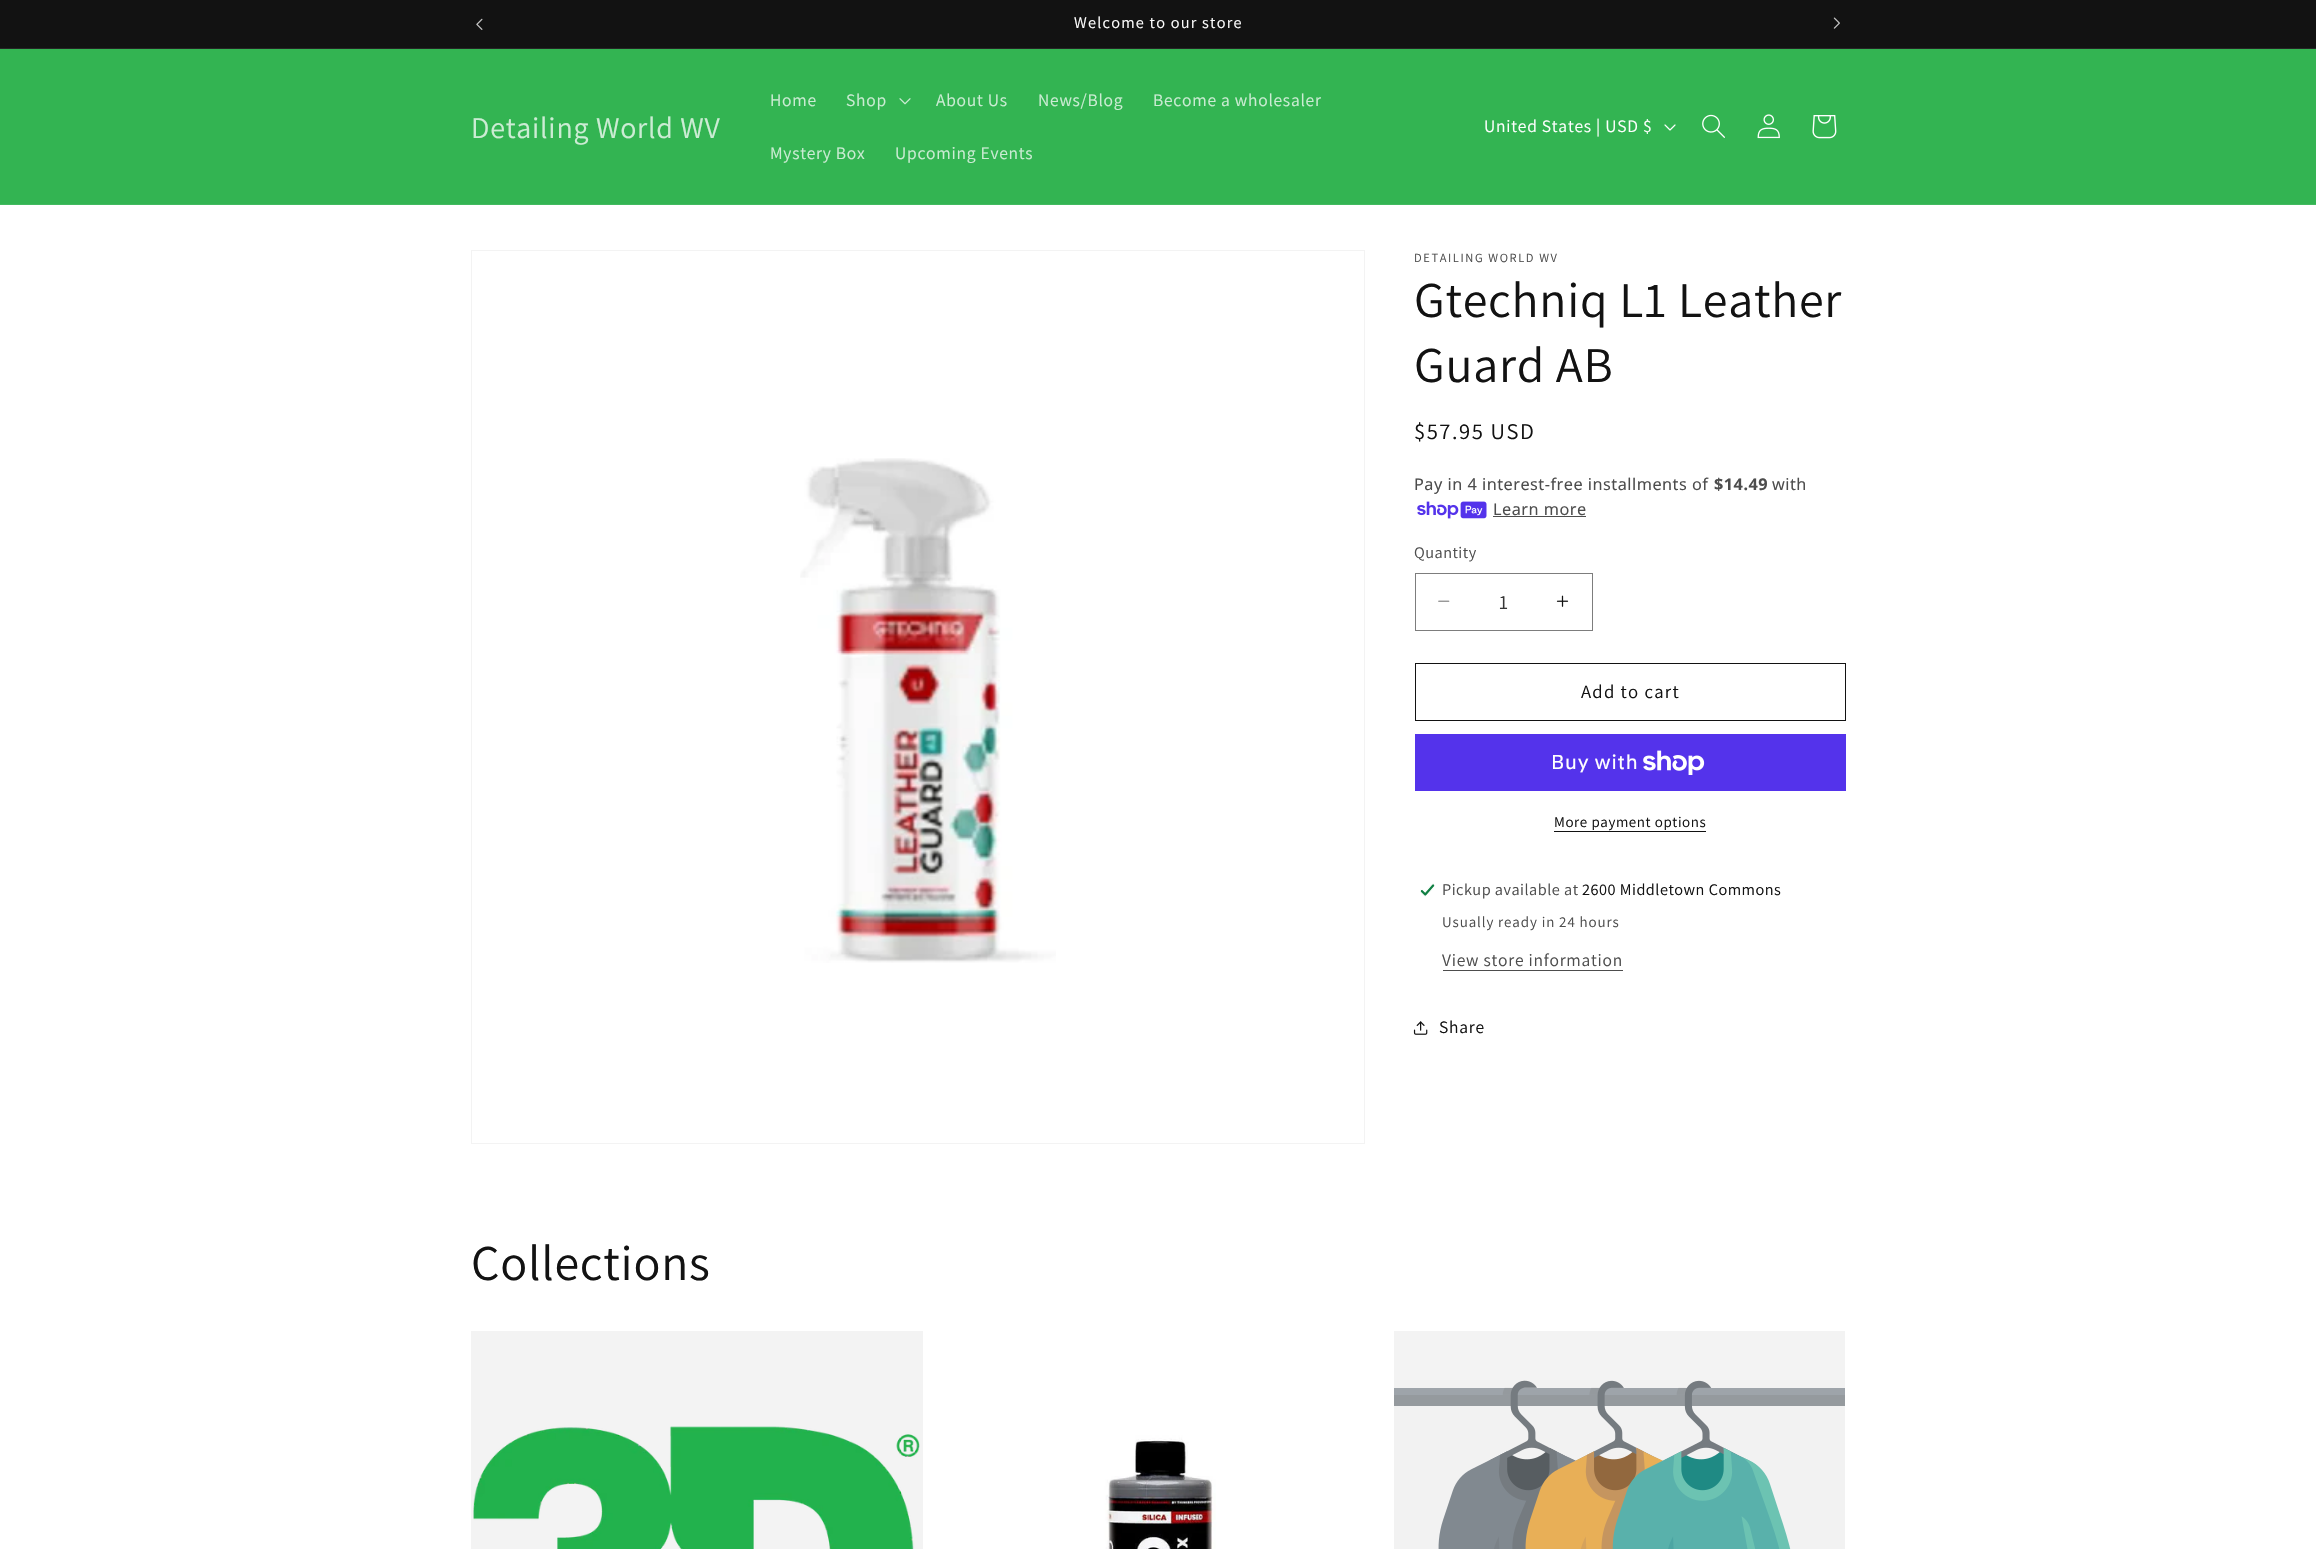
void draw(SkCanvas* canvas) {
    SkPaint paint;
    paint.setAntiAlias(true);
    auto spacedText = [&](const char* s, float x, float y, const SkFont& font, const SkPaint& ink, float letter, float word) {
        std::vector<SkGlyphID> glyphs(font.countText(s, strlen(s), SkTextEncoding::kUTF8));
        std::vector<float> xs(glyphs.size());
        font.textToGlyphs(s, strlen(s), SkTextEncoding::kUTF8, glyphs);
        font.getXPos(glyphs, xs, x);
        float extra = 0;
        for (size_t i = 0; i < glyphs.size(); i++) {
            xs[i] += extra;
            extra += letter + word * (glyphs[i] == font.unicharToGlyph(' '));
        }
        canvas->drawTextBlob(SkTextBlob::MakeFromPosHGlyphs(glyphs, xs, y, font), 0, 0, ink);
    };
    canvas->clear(0xFFFFFFFF);
    paint.setColor(0xFF121212);
    canvas->drawRect(SkRect::MakeXYWH(0, 0, 2316, 48), paint);
    paint.setColor(0xFF252525);
    canvas->drawRect(SkRect::MakeXYWH(0, 48, 2316, 1), paint);
    canvas->drawImageRect(SkImages::DeferredFromEncodedData(SkData::MakeFromFileName("img1.png")), SkRect::MakeXYWH(476, 18, 7, 12), SkSamplingOptions());
    SkFont font1(fontMgr->matchFamilyStyle("Assistant", SkFontStyle::Normal()), 16.25f);
    font1.setSubpixel(true);
    paint.setColor(0xFFFFFFFF);
    spacedText("Welcome to our store", 1074, 28, font1, paint, 1.25f, 0);
    canvas->drawImageRect(SkImages::DeferredFromEncodedData(SkData::MakeFromFileName("img2.png")), SkRect::MakeXYWH(1833, 17, 7, 12), SkSamplingOptions());
    paint.setColor(0xFF33B452);
    canvas->drawRect(SkRect::MakeXYWH(0, 49, 2316, 155), paint);
    paint.setColor(0xFF43BA60);
    canvas->drawRect(SkRect::MakeXYWH(0, 204, 2316, 1), paint);
    SkFont font2(fontMgr->matchFamilyStyle("Assistant", SkFontStyle::Normal()), 30);
    font2.setSubpixel(true);
    paint.setColor(0xFFCCECD4);
    spacedText("Detailing World WV", 471, 138, font2, paint, 0.75f, 0);
    SkFont font3(fontMgr->matchFamilyStyle("Assistant", SkFontStyle::Normal()), 17.5f);
    font3.setSubpixel(true);
    spacedText("Home", 770, 106, font3, paint, 0.75f, 0);
    spacedText("Shop", 846, 106, font3, paint, 0.75f, 0);
    canvas->drawImageRect(SkImages::DeferredFromEncodedData(SkData::MakeFromFileName("img3.png")), SkRect::MakeXYWH(899, 98, 12, 7), SkSamplingOptions());
    spacedText("About Us", 936, 106, font3, paint, 0.75f, 0);
    spacedText("News/Blog", 1038, 106, font3, paint, 0.75f, 0);
    spacedText("Become a wholesaler", 1153, 106, font3, paint, 0.75f, 0);
    spacedText("Mystery Box", 770, 159, font3, paint, 0.75f, 0);
    spacedText("Upcoming Events", 895, 159, font3, paint, 0.75f, 0);
    paint.setColor(0xFFFFFFFF);
    spacedText("United States | USD $", 1484, 132, font3, paint, 0.75f, 0);
    canvas->drawImageRect(SkImages::DeferredFromEncodedData(SkData::MakeFromFileName("img4.png")), SkRect::MakeXYWH(1664, 124, 12, 7), SkSamplingOptions());
    canvas->drawImageRect(SkImages::DeferredFromEncodedData(SkData::MakeFromFileName("img5.png")), SkRect::MakeXYWH(1702, 114, 23, 24), SkSamplingOptions());
    canvas->drawImageRect(SkImages::DeferredFromEncodedData(SkData::MakeFromFileName("img6.png")), SkRect::MakeXYWH(1757, 114, 23, 25), SkSamplingOptions());
    canvas->drawImageRect(SkImages::DeferredFromEncodedData(SkData::MakeFromFileName("img7.png")), SkRect::MakeXYWH(1812, 115, 25, 24), SkSamplingOptions());
    paint.setStyle(SkPaint::kStroke_Style);
    paint.setStrokeWidth(1);
    paint.setColor(0xFFF3F3F3);
    canvas->drawRect(SkRect::MakeXYWH(471.5f, 250.5f, 893, 893), paint);
    canvas->drawImageRect(SkImages::DeferredFromEncodedData(SkData::MakeFromFileName("img8.png")), SkRect::MakeXYWH(800, 458, 256, 505), SkSamplingOptions());
    SkFont font4(fontMgr->matchFamilyStyle("Assistant", SkFontStyle::Normal()), 12.5f);
    font4.setSubpixel(true);
    paint.setStyle(SkPaint::kFill_Style);
    paint.setColor(0xFF4D4D4D);
    spacedText("DETAILING WORLD WV", 1414, 262, font4, paint, 1.6f, 0);
    SkFont font5(fontMgr->matchFamilyStyle("Assistant", SkFontStyle::Normal()), 50);
    font5.setSubpixel(true);
    paint.setColor(0xFF121212);
    spacedText("Gtechniq L1 Leather", 1414, 317, font5, paint, 0.75f, 0);
    spacedText("Guard AB", 1414, 382, font5, paint, 0.75f, 0);
    SkFont font6(fontMgr->matchFamilyStyle("Assistant", SkFontStyle::Normal()), 22.5f);
    font6.setSubpixel(true);
    spacedText("$57.95 USD", 1414, 439, font6, paint, 1.6f, 0);
    SkFont font7(fontMgr->matchFamilyStyle("Noto Sans", SkFontStyle::Normal()), 16.25f);
    font7.setSubpixel(true);
    paint.setColor(0xFF4D4D4D);
    spacedText("Pay in 4 interest-free installments of", 1414, 490, font7, paint, 0.5f, 0);
    SkFont font8(fontMgr->matchFamilyStyle("Noto Sans", SkFontStyle::Bold()), 16.25f);
    font8.setSubpixel(true);
    spacedText("$14.49", 1714, 490, font8, paint, 0.5f, 0);
    spacedText("with", 1772, 490, font7, paint, 0.5f, 0);
    canvas->drawImageRect(SkImages::DeferredFromEncodedData(SkData::MakeFromFileName("img9.png")), SkRect::MakeXYWH(1417, 501, 70, 18), SkSamplingOptions());
    spacedText("Learn more", 1493, 515, font7, paint, 0.5f, 0);
    canvas->drawRect(SkRect::MakeXYWH(1493, 516, 93, 1), paint);
    spacedText("Quantity", 1414, 558, font1, paint, 0.5f, 0);
    canvas->drawImageRect(SkImages::DeferredFromEncodedData(SkData::MakeFromFileName("img10.png")), SkRect::MakeXYWH(1438, 600, 12, 2), SkSamplingOptions());
    canvas->drawImageRect(SkImages::DeferredFromEncodedData(SkData::MakeFromFileName("img11.png")), SkRect::MakeXYWH(1556, 595, 13, 12), SkSamplingOptions());
    paint.setStyle(SkPaint::kStroke_Style);
    paint.setColor(0xFF7D7D7D);
    canvas->drawRect(SkRect::MakeXYWH(1415.5f, 573.5f, 177, 57), paint);
    SkFont font9(fontMgr->matchFamilyStyle("Assistant", SkFontStyle::Normal()), 20);
    font9.setSubpixel(true);
    paint.setStyle(SkPaint::kFill_Style);
    paint.setColor(0xFF363636);
    canvas->drawString("1", 1499, 609, font9, paint);
    paint.setStyle(SkPaint::kStroke_Style);
    paint.setColor(0xFF121212);
    canvas->drawRect(SkRect::MakeXYWH(1415.5f, 663.5f, 430, 57), paint);
    SkFont font10(fontMgr->matchFamilyStyle("Assistant", SkFontStyle::Normal()), 18.75f);
    font10.setSubpixel(true);
    paint.setStyle(SkPaint::kFill_Style);
    spacedText("Add to cart", 1581, 698, font10, paint, 1.25f, 0);
    paint.setColor(0xFF5433EB);
    canvas->drawRect(SkRect::MakeXYWH(1415, 734, 431, 57), paint);
    SkFont font11(fontMgr->matchFamilyStyle("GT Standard", SkFontStyle::Normal()), 20);
    font11.setSubpixel(true);
    paint.setColor(0xFFFFFFFF);
    spacedText("Buy with", 1551, 769, font11, paint, 0.75f, 0);
    canvas->drawImageRect(SkImages::DeferredFromEncodedData(SkData::MakeFromFileName("img12.png")), SkRect::MakeXYWH(1643, 750, 62, 25), SkSamplingOptions());
    SkFont font12(fontMgr->matchFamilyStyle("Assistant", SkFontStyle::Normal()), 15);
    font12.setSubpixel(true);
    paint.setColor(0xFF121212);
    spacedText("More payment options", 1554, 827, font12, paint, 0.6f, 0);
    canvas->drawRect(SkRect::MakeXYWH(1554, 831, 152, 1), paint);
    canvas->drawImageRect(SkImages::DeferredFromEncodedData(SkData::MakeFromFileName("img13.png")), SkRect::MakeXYWH(1420, 883, 15, 14), SkSamplingOptions());
    paint.setColor(0xFF4D4D4D);
    spacedText("Pickup available at", 1442, 895, font1, paint, 0.5f, 0);
    paint.setColor(0xFF121212);
    spacedText("2600 Middletown Commons", 1582, 895, font1, paint, 0.5f, 0);
    paint.setColor(0xFF4D4D4D);
    spacedText("Usually ready in 24 hours", 1442, 927, font12, paint, 0.9f, 0);
    spacedText("View store information", 1442, 966, font3, paint, 0.75f, 0);
    canvas->drawRect(SkRect::MakeXYWH(1443, 970, 180, 1), paint);
    canvas->drawImageRect(SkImages::DeferredFromEncodedData(SkData::MakeFromFileName("img14.png")), SkRect::MakeXYWH(1413, 1021, 15, 14), SkSamplingOptions());
    paint.setColor(0xFF121212);
    spacedText("Share", 1439, 1033, font3, paint, 0.75f, 0);
    spacedText("Collections", 471, 1280, font5, paint, 0.75f, 0);
    paint.setColor(0xFFF3F3F3);
    canvas->drawRect(SkRect::MakeXYWH(471, 1331, 452, 218), paint);
    canvas->drawImageRect(SkImages::DeferredFromEncodedData(SkData::MakeFromFileName("img15.png")), SkRect::MakeXYWH(473, 1426, 447, 123), SkSamplingOptions());
    canvas->drawImageRect(SkImages::DeferredFromEncodedData(SkData::MakeFromFileName("img16.png")), SkRect::MakeXYWH(933, 1331, 451, 218), SkSamplingOptions());
    canvas->drawRect(SkRect::MakeXYWH(1394, 1331, 451, 49), paint);
    canvas->drawImageRect(SkImages::DeferredFromEncodedData(SkData::MakeFromFileName("img17.png")), SkRect::MakeXYWH(1394, 1380, 451, 169), SkSamplingOptions());
}
